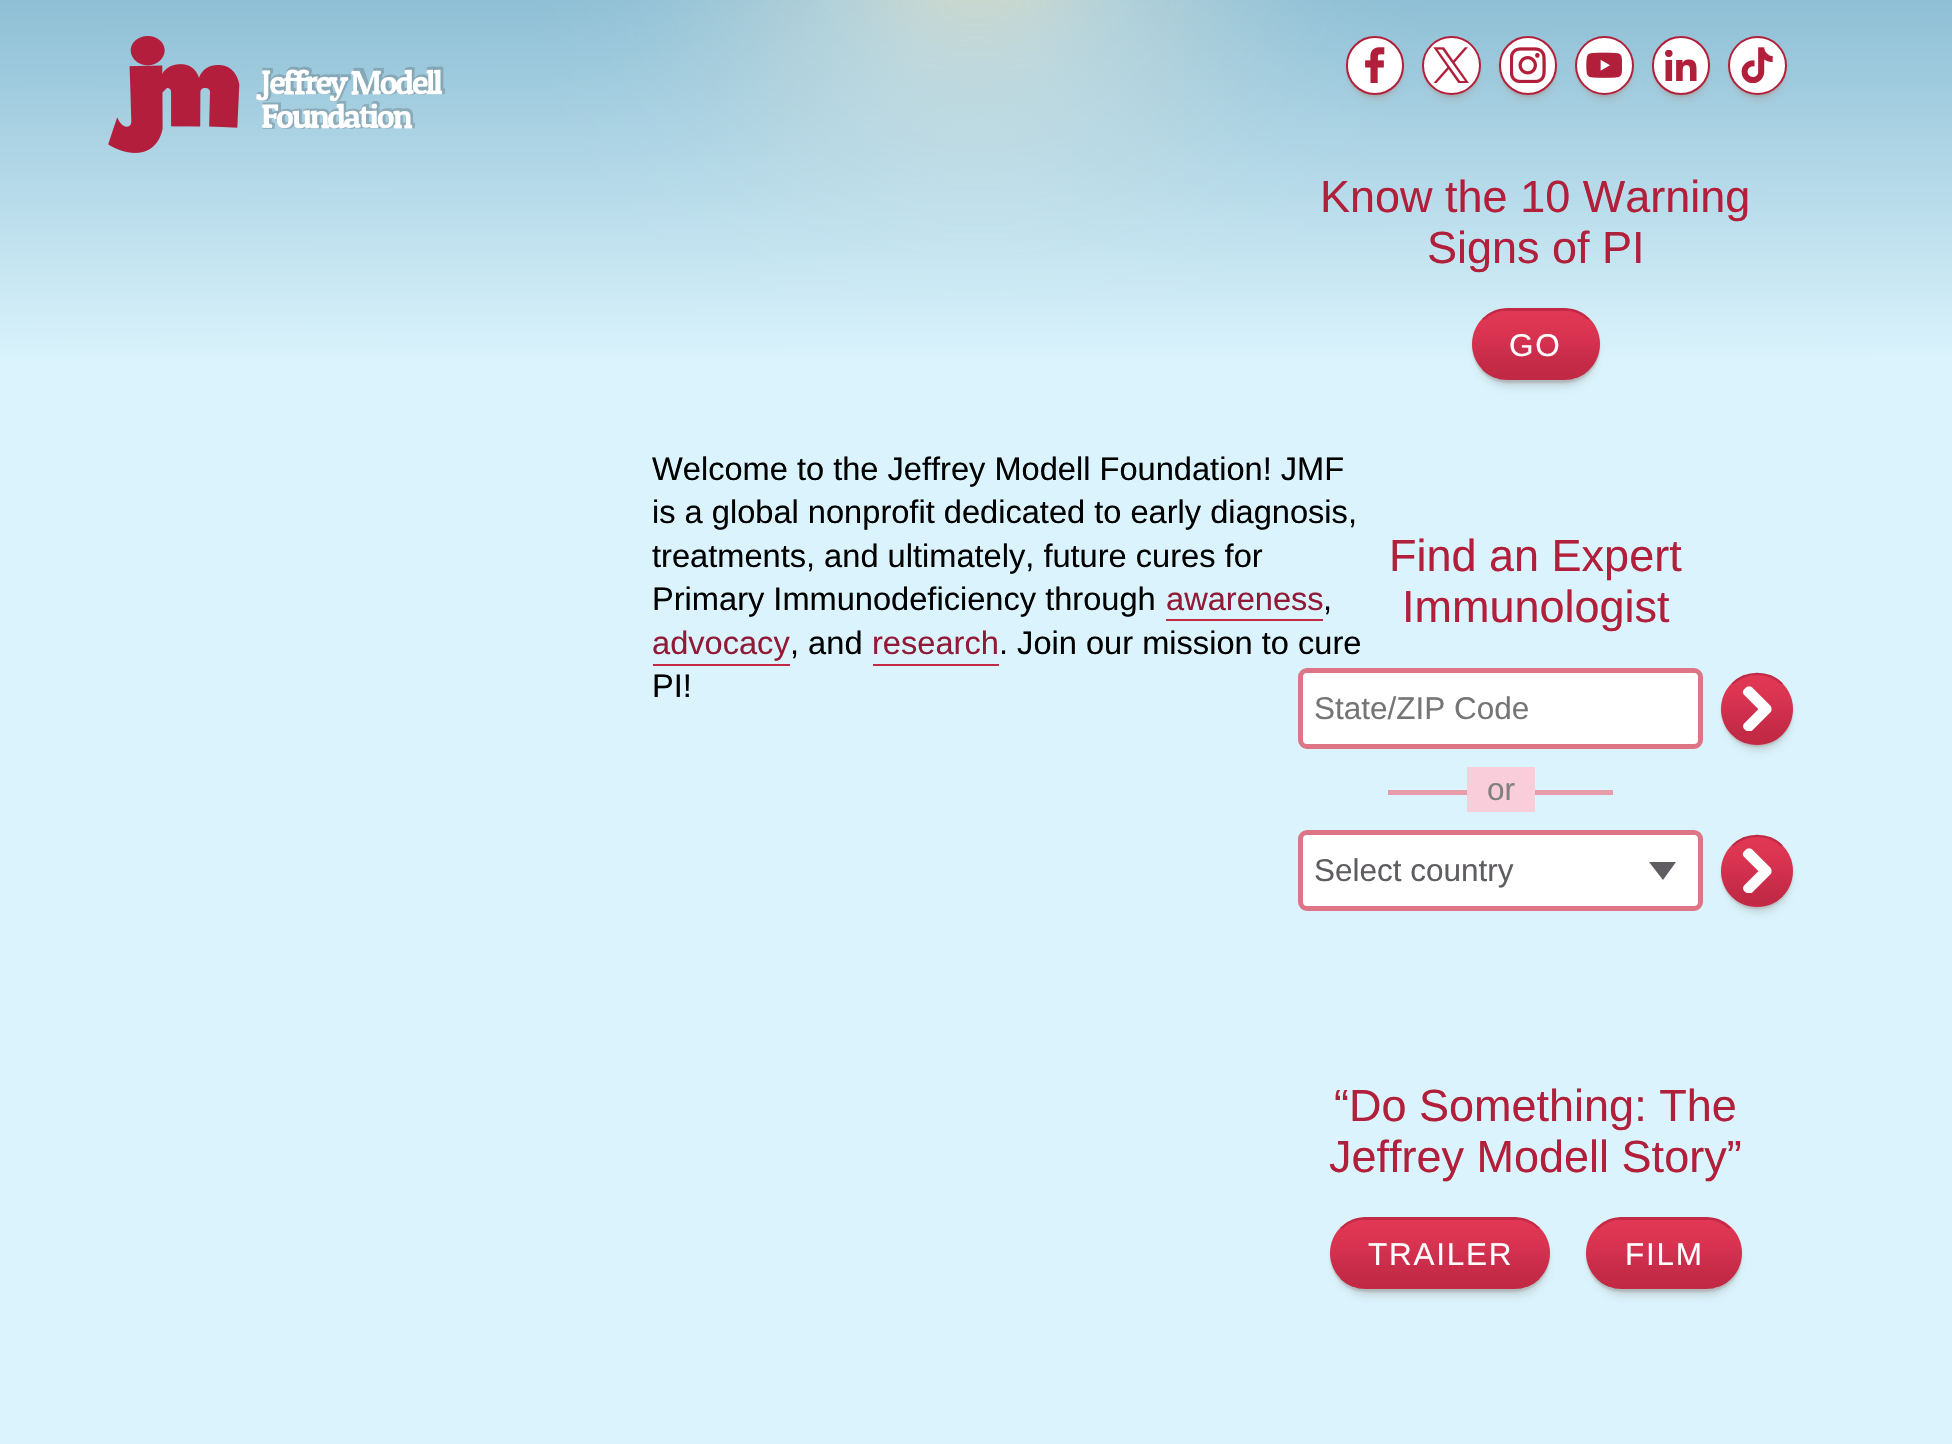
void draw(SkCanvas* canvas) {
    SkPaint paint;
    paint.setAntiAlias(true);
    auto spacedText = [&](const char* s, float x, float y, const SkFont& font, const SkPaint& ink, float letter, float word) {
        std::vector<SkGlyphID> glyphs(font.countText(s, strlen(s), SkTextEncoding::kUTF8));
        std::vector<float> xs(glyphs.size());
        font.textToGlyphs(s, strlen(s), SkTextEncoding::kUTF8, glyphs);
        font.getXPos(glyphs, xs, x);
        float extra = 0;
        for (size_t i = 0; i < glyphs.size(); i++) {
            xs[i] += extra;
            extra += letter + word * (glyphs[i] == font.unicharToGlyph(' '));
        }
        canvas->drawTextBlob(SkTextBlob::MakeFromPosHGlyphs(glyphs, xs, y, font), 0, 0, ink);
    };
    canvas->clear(0xFFFFFFFF);
    {
        const SkColor colors[] = {0xFF8EBFD5, 0xFFDAF3FC};
        const float stops[] = {0, 0.25f};
        const SkPoint ends[] = {{976, 0}, {977, 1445}};
        paint.setShader(SkGradientShader::MakeLinear(ends, colors, stops, 2, SkTileMode::kClamp));
        paint.setAlpha(255);
    }
    canvas->drawRect(SkRect::MakeXYWH(0, 0, 1952, 1444), paint);
    paint.setShader(nullptr);
    paint.setColor(0x80FCF4E0);
    paint.setMaskFilter(SkMaskFilter::MakeBlur(kNormal_SkBlurStyle, 101));
    canvas->drawRoundRect(SkRect::MakeXYWH(716, -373, 522, 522), 261, 261, paint);
    paint.setMaskFilter(nullptr);
    paint.setColor(0x80F6E1B1);
    paint.setMaskFilter(SkMaskFilter::MakeBlur(kNormal_SkBlurStyle, 37));
    canvas->drawRoundRect(SkRect::MakeXYWH(855, -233, 243, 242), 121.5f, 121.5f, paint);
    paint.setMaskFilter(nullptr);
    canvas->drawImageRect(SkImages::DeferredFromEncodedData(SkData::MakeFromFileName("img1.png")), SkRect::MakeXYWH(108, 36, 338, 117), SkSamplingOptions());
    paint.setColor(0x85A1A1A1);
    paint.setMaskFilter(SkMaskFilter::MakeBlur(kNormal_SkBlurStyle, 5));
    canvas->drawRoundRect(SkRect::MakeXYWH(1352, 52, 48, 47), 23.5f, 23.5f, paint);
    paint.setMaskFilter(nullptr);
    paint.setMaskFilter(SkMaskFilter::MakeBlur(kNormal_SkBlurStyle, 1));
    canvas->drawRoundRect(SkRect::MakeXYWH(1346, 38, 58, 59), 29, 29, paint);
    paint.setMaskFilter(nullptr);
    paint.setColor(0xFFFFFFFF);
    canvas->drawRoundRect(SkRect::MakeXYWH(1347, 37, 56, 57), 28, 28, paint);
    paint.setStyle(SkPaint::kStroke_Style);
    paint.setStrokeWidth(2);
    paint.setColor(0xFFB21F3A);
    canvas->drawRoundRect(SkRect::MakeXYWH(1347, 37, 56, 57), 28, 28, paint);
    canvas->drawImageRect(SkImages::DeferredFromEncodedData(SkData::MakeFromFileName("img2.png")), SkRect::MakeXYWH(1365, 47, 20, 36), SkSamplingOptions());
    paint.setStyle(SkPaint::kFill_Style);
    paint.setColor(0x85A1A1A1);
    paint.setMaskFilter(SkMaskFilter::MakeBlur(kNormal_SkBlurStyle, 5));
    canvas->drawRoundRect(SkRect::MakeXYWH(1429, 52, 47, 47), 23.5f, 23.5f, paint);
    paint.setMaskFilter(nullptr);
    paint.setMaskFilter(SkMaskFilter::MakeBlur(kNormal_SkBlurStyle, 1));
    canvas->drawRoundRect(SkRect::MakeXYWH(1422, 38, 59, 59), 29.5f, 29.5f, paint);
    paint.setMaskFilter(nullptr);
    paint.setColor(0xFFFFFFFF);
    canvas->drawCircle(1451.5f, 65.5f, 28.5f, paint);
    paint.setStyle(SkPaint::kStroke_Style);
    paint.setColor(0xFFB21F3A);
    canvas->drawCircle(1451.5f, 65.5f, 28.5f, paint);
    canvas->drawImageRect(SkImages::DeferredFromEncodedData(SkData::MakeFromFileName("img3.png")), SkRect::MakeXYWH(1433, 47, 36, 36), SkSamplingOptions());
    paint.setStyle(SkPaint::kFill_Style);
    paint.setColor(0x85A1A1A1);
    paint.setMaskFilter(SkMaskFilter::MakeBlur(kNormal_SkBlurStyle, 5));
    canvas->drawRoundRect(SkRect::MakeXYWH(1505, 52, 48, 47), 23.5f, 23.5f, paint);
    paint.setMaskFilter(nullptr);
    paint.setMaskFilter(SkMaskFilter::MakeBlur(kNormal_SkBlurStyle, 1));
    canvas->drawRoundRect(SkRect::MakeXYWH(1499, 38, 58, 59), 29, 29, paint);
    paint.setMaskFilter(nullptr);
    paint.setColor(0xFFFFFFFF);
    canvas->drawRoundRect(SkRect::MakeXYWH(1500, 37, 56, 57), 28, 28, paint);
    paint.setStyle(SkPaint::kStroke_Style);
    paint.setColor(0xFFB21F3A);
    canvas->drawRoundRect(SkRect::MakeXYWH(1500, 37, 56, 57), 28, 28, paint);
    canvas->drawImageRect(SkImages::DeferredFromEncodedData(SkData::MakeFromFileName("img4.png")), SkRect::MakeXYWH(1510, 47, 36, 36), SkSamplingOptions());
    paint.setStyle(SkPaint::kFill_Style);
    paint.setColor(0x85A1A1A1);
    paint.setMaskFilter(SkMaskFilter::MakeBlur(kNormal_SkBlurStyle, 5));
    canvas->drawRoundRect(SkRect::MakeXYWH(1582, 52, 47, 47), 23.5f, 23.5f, paint);
    paint.setMaskFilter(nullptr);
    paint.setMaskFilter(SkMaskFilter::MakeBlur(kNormal_SkBlurStyle, 1));
    canvas->drawRoundRect(SkRect::MakeXYWH(1575, 38, 59, 59), 29.5f, 29.5f, paint);
    paint.setMaskFilter(nullptr);
    paint.setColor(0xFFFFFFFF);
    canvas->drawCircle(1604.5f, 65.5f, 28.5f, paint);
    paint.setStyle(SkPaint::kStroke_Style);
    paint.setColor(0xFFB21F3A);
    canvas->drawCircle(1604.5f, 65.5f, 28.5f, paint);
    canvas->drawImageRect(SkImages::DeferredFromEncodedData(SkData::MakeFromFileName("img5.png")), SkRect::MakeXYWH(1586, 52, 36, 26), SkSamplingOptions());
    paint.setStyle(SkPaint::kFill_Style);
    paint.setColor(0x85A1A1A1);
    paint.setMaskFilter(SkMaskFilter::MakeBlur(kNormal_SkBlurStyle, 5));
    canvas->drawRoundRect(SkRect::MakeXYWH(1658, 52, 48, 47), 23.5f, 23.5f, paint);
    paint.setMaskFilter(nullptr);
    paint.setMaskFilter(SkMaskFilter::MakeBlur(kNormal_SkBlurStyle, 1));
    canvas->drawRoundRect(SkRect::MakeXYWH(1652, 38, 58, 59), 29, 29, paint);
    paint.setMaskFilter(nullptr);
    paint.setColor(0xFFFFFFFF);
    canvas->drawRoundRect(SkRect::MakeXYWH(1653, 37, 56, 57), 28, 28, paint);
    paint.setStyle(SkPaint::kStroke_Style);
    paint.setColor(0xFFB21F3A);
    canvas->drawRoundRect(SkRect::MakeXYWH(1653, 37, 56, 57), 28, 28, paint);
    canvas->drawImageRect(SkImages::DeferredFromEncodedData(SkData::MakeFromFileName("img6.png")), SkRect::MakeXYWH(1665, 50, 32, 31), SkSamplingOptions());
    paint.setStyle(SkPaint::kFill_Style);
    paint.setColor(0x85A1A1A1);
    paint.setMaskFilter(SkMaskFilter::MakeBlur(kNormal_SkBlurStyle, 5));
    canvas->drawRoundRect(SkRect::MakeXYWH(1735, 52, 47, 47), 23.5f, 23.5f, paint);
    paint.setMaskFilter(nullptr);
    paint.setMaskFilter(SkMaskFilter::MakeBlur(kNormal_SkBlurStyle, 1));
    canvas->drawRoundRect(SkRect::MakeXYWH(1728, 38, 59, 59), 29.5f, 29.5f, paint);
    paint.setMaskFilter(nullptr);
    paint.setColor(0xFFFFFFFF);
    canvas->drawCircle(1757.5f, 65.5f, 28.5f, paint);
    paint.setStyle(SkPaint::kStroke_Style);
    paint.setColor(0xFFB21F3A);
    canvas->drawCircle(1757.5f, 65.5f, 28.5f, paint);
    canvas->drawImageRect(SkImages::DeferredFromEncodedData(SkData::MakeFromFileName("img7.png")), SkRect::MakeXYWH(1741, 47, 32, 36), SkSamplingOptions());
    SkFont font1(fontMgr->matchFamilyStyle("Liberation Sans", SkFontStyle::Normal()), 32.6f);
    font1.setSubpixel(true);
    paint.setStyle(SkPaint::kFill_Style);
    paint.setColor(0xFF000000);
    canvas->drawString("Welcome to the Jeffrey Modell Foundation! JMF", 652, 480, font1, paint);
    canvas->drawString("is a global nonprofit dedicated to early diagnosis,", 652, 523, font1, paint);
    canvas->drawString("treatments, and ultimately, future cures for", 652, 567, font1, paint);
    canvas->drawString("Primary Immunodeficiency through", 652, 610, font1, paint);
    paint.setColor(0xFF911A37);
    canvas->drawString("awareness", 1166, 610, font1, paint);
    paint.setColor(0xFFC12945);
    canvas->drawRect(SkRect::MakeXYWH(1166, 619, 157, 2), paint);
    paint.setColor(0xFF000000);
    canvas->drawString(",", 1323, 610, font1, paint);
    paint.setColor(0xFF911A37);
    canvas->drawString("advocacy", 652, 654, font1, paint);
    paint.setColor(0xFFC12945);
    canvas->drawRect(SkRect::MakeXYWH(653, 664, 137, 2), paint);
    paint.setColor(0xFF000000);
    canvas->drawString(", and", 790, 654, font1, paint);
    paint.setColor(0xFF911A37);
    canvas->drawString("research", 872, 654, font1, paint);
    paint.setColor(0xFFC12945);
    canvas->drawRect(SkRect::MakeXYWH(873, 664, 126, 2), paint);
    paint.setColor(0xFF000000);
    canvas->drawString(". Join our mission to cure", 999, 654, font1, paint);
    canvas->drawString("PI!", 652, 697, font1, paint);
    SkFont font2(fontMgr->matchFamilyStyle("Liberation Sans", SkFontStyle::Normal()), 45);
    font2.setSubpixel(true);
    paint.setColor(0xFFB21F3A);
    canvas->drawString("Know the 10 Warning", 1320, 212, font2, paint);
    canvas->drawString("Signs of PI", 1427, 263, font2, paint);
    paint.setColor(0x85A1A1A1);
    paint.setMaskFilter(SkMaskFilter::MakeBlur(kNormal_SkBlurStyle, 5));
    canvas->drawRoundRect(SkRect::MakeXYWH(1478, 324, 117, 61), 30.5f, 30.5f, paint);
    paint.setMaskFilter(nullptr);
    paint.setMaskFilter(SkMaskFilter::MakeBlur(kNormal_SkBlurStyle, 1));
    canvas->drawRoundRect(SkRect::MakeXYWH(1472, 311, 128, 72), 36, 36, paint);
    paint.setMaskFilter(nullptr);
    canvas->save();
    canvas->clipPath(SkPathBuilder().moveTo(1508, 308).lineTo(1564, 308).cubicTo(1584, 308, 1600, 324, 1600, 344).cubicTo(1600, 364, 1584, 380, 1564, 380).lineTo(1508, 380).cubicTo(1488, 380, 1472, 364, 1472, 344).cubicTo(1472, 324, 1488, 308, 1508, 308).close().detach(), true);
    {
        const SkColor colors[] = {0xFFC22945, 0xFFC52B47, 0xFFC92C49, 0xFFCC2E4B, 0xFFD02F4D, 0xFFD3314F, 0xFFD73351, 0xFFDA3450, 0xFFDD3652, 0xFFE13754};
        const float stops[] = {0, 0.21f, 0.3f, 0.39f, 0.46f, 0.54f, 0.61f, 0.69f, 0.79f, 1};
        const SkPoint ends[] = {{1536, 311}, {1536, 243}};
        paint.setShader(SkGradientShader::MakeLinear(ends, colors, stops, 10, SkTileMode::kClamp));
        paint.setAlpha(255);
    }
    canvas->drawRect(SkRect::MakeXYWH(1493, 308, 86, 3), paint);
    {
        const SkColor colors[] = {0xFFC22945, 0xFFC52B47, 0xFFC92C49, 0xFFCC2E4B, 0xFFD02F4D, 0xFFD3314F, 0xFFD73351, 0xFFDA3450, 0xFFDD3652, 0xFFE13754};
        const float stops[] = {0, 0.21f, 0.3f, 0.39f, 0.46f, 0.54f, 0.61f, 0.69f, 0.79f, 1};
        const SkPoint ends[] = {{1536, 378}, {1536, 311}};
        paint.setShader(SkGradientShader::MakeLinear(ends, colors, stops, 10, SkTileMode::kClamp));
        paint.setAlpha(255);
    }
    canvas->drawRect(SkRect::MakeXYWH(1472, 311, 128, 67), paint);
    canvas->restore();
    paint.setStyle(SkPaint::kStroke_Style);
    paint.setStrokeWidth(2.2f);
    paint.setShader(nullptr);
    paint.setColor(0xFFC12945);
    canvas->drawPath(SkPathBuilder().moveTo(1483, 319.5f).cubicTo(1489.5f, 313, 1498.5f, 309.5f, 1507.5f, 309.5f).lineTo(1564, 309.5f).cubicTo(1573, 309.5f, 1582, 313, 1588.5f, 319.5f).detach(), paint);
    canvas->drawPath(SkPathBuilder().moveTo(1588.5f, 369).cubicTo(1582, 375.5f, 1573, 379, 1564, 379).lineTo(1507.5f, 379).cubicTo(1498.5f, 379, 1489.5f, 375.5f, 1483, 369).detach(), paint);
    SkFont font3(fontMgr->matchFamilyStyle("Liberation Sans", SkFontStyle::Normal()), 31.5f);
    font3.setSubpixel(true);
    paint.setStyle(SkPaint::kFill_Style);
    paint.setColor(0xFFFFFFFF);
    spacedText("GO", 1509, 356, font3, paint, 1.75f, 0);
    paint.setColor(0xFFB21F3A);
    canvas->drawString("Find an Expert", 1389, 571, font2, paint);
    canvas->drawString("Immunologist", 1402, 622, font2, paint);
    paint.setColor(0xFFFFFFFF);
    canvas->drawRoundRect(SkRect::MakeXYWH(1300.5f, 670.5f, 400, 76), 6.5f, 6.5f, paint);
    paint.setStyle(SkPaint::kStroke_Style);
    paint.setStrokeWidth(5);
    paint.setColor(0xFFDD7587);
    canvas->drawRoundRect(SkRect::MakeXYWH(1300.5f, 670.5f, 400, 76), 6.5f, 6.5f, paint);
    paint.setStyle(SkPaint::kFill_Style);
    paint.setColor(0xFF757575);
    canvas->drawString("State/ZIP Code", 1314, 719, font3, paint);
    paint.setColor(0x85A1A1A1);
    paint.setMaskFilter(SkMaskFilter::MakeBlur(kNormal_SkBlurStyle, 5));
    canvas->drawRoundRect(SkRect::MakeXYWH(1728, 689, 61, 60), 30, 30, paint);
    paint.setMaskFilter(nullptr);
    paint.setMaskFilter(SkMaskFilter::MakeBlur(kNormal_SkBlurStyle, 1));
    canvas->drawRoundRect(SkRect::MakeXYWH(1721, 675, 72, 72), 36, 36, paint);
    paint.setMaskFilter(nullptr);
    canvas->save();
    canvas->clipPath(SkPathBuilder().moveTo(1757, 673).cubicTo(1777, 673, 1793, 689, 1793, 709).cubicTo(1793, 729, 1777, 745, 1757, 745).cubicTo(1737, 745, 1721, 729, 1721, 709).cubicTo(1721, 689, 1737, 673, 1757, 673).close().detach(), true);
    {
        const SkColor colors[] = {0xFFC22945, 0xFFC52B47, 0xFFC92C49, 0xFFCC2E4B, 0xFFD02F4D, 0xFFD3314F, 0xFFD73351, 0xFFDA3450, 0xFFDD3652, 0xFFE13754};
        const float stops[] = {0, 0.21f, 0.3f, 0.39f, 0.46f, 0.54f, 0.61f, 0.69f, 0.79f, 1};
        const SkPoint ends[] = {{1757, 743}, {1757, 675}};
        paint.setShader(SkGradientShader::MakeLinear(ends, colors, stops, 10, SkTileMode::kClamp));
        paint.setAlpha(255);
    }
    canvas->drawRect(SkRect::MakeXYWH(1721, 675, 72, 68), paint);
    {
        const SkColor colors[] = {0xFFC22945, 0xFFC52B47, 0xFFC92C49, 0xFFCC2E4B, 0xFFD02F4D, 0xFFD3314F, 0xFFD73351, 0xFFDA3450, 0xFFDD3652, 0xFFE13754};
        const float stops[] = {0, 0.21f, 0.3f, 0.39f, 0.46f, 0.54f, 0.61f, 0.69f, 0.79f, 1};
        const SkPoint ends[] = {{1757, 810}, {1757, 743}};
        paint.setShader(SkGradientShader::MakeLinear(ends, colors, stops, 10, SkTileMode::kClamp));
        paint.setAlpha(255);
    }
    canvas->drawRect(SkRect::MakeXYWH(1745, 743, 24, 2), paint);
    canvas->restore();
    paint.setStyle(SkPaint::kStroke_Style);
    paint.setStrokeWidth(2.2f);
    paint.setShader(nullptr);
    paint.setColor(0xFFC12945);
    canvas->drawPath(SkPathBuilder().moveTo(1732.5f, 684).cubicTo(1746, 670.5f, 1768.5f, 670.5f, 1782, 684).detach(), paint);
    canvas->drawPath(SkPathBuilder().moveTo(1782, 733.5f).cubicTo(1768.5f, 747, 1746, 747, 1732.5f, 733.5f).detach(), paint);
    canvas->drawImageRect(SkImages::DeferredFromEncodedData(SkData::MakeFromFileName("img8.png")), SkRect::MakeXYWH(1742, 686, 30, 45), SkSamplingOptions());
    paint.setStyle(SkPaint::kFill_Style);
    paint.setColor(0xFFE89BA8);
    canvas->drawRect(SkRect::MakeXYWH(1388, 790, 225, 5), paint);
    paint.setColor(0xFFF9CEDA);
    canvas->drawRect(SkRect::MakeXYWH(1467, 767, 68, 45), paint);
    paint.setColor(0xFF808080);
    canvas->drawString("or", 1487, 800, font3, paint);
    paint.setColor(0xFFFFFFFF);
    canvas->drawRoundRect(SkRect::MakeXYWH(1300.5f, 832.5f, 400, 76), 6.5f, 6.5f, paint);
    paint.setStyle(SkPaint::kStroke_Style);
    paint.setStrokeWidth(5);
    paint.setColor(0xFFDD7587);
    canvas->drawRoundRect(SkRect::MakeXYWH(1300.5f, 832.5f, 400, 76), 6.5f, 6.5f, paint);
    paint.setStyle(SkPaint::kFill_Style);
    paint.setColor(0xFF605D62);
    canvas->drawString("Select country", 1314, 881, font3, paint);
    canvas->drawPath(SkPathBuilder().moveTo(1649, 862).lineTo(1676, 862).lineTo(1663, 880).close().detach(), paint);
    paint.setColor(0x85A1A1A1);
    paint.setMaskFilter(SkMaskFilter::MakeBlur(kNormal_SkBlurStyle, 5));
    canvas->drawRoundRect(SkRect::MakeXYWH(1728, 851, 61, 60), 30, 30, paint);
    paint.setMaskFilter(nullptr);
    paint.setMaskFilter(SkMaskFilter::MakeBlur(kNormal_SkBlurStyle, 1));
    canvas->drawRoundRect(SkRect::MakeXYWH(1721, 837, 72, 72), 36, 36, paint);
    paint.setMaskFilter(nullptr);
    canvas->save();
    canvas->clipPath(SkPathBuilder().moveTo(1757, 835).cubicTo(1777, 835, 1793, 851, 1793, 871).cubicTo(1793, 891, 1777, 907, 1757, 907).cubicTo(1737, 907, 1721, 891, 1721, 871).cubicTo(1721, 851, 1737, 835, 1757, 835).close().detach(), true);
    {
        const SkColor colors[] = {0xFFC22945, 0xFFC52B47, 0xFFC92C49, 0xFFCC2E4B, 0xFFD02F4D, 0xFFD3314F, 0xFFD73351, 0xFFDA3450, 0xFFDD3652, 0xFFE13754};
        const float stops[] = {0, 0.21f, 0.3f, 0.39f, 0.46f, 0.54f, 0.61f, 0.69f, 0.79f, 1};
        const SkPoint ends[] = {{1757, 905}, {1757, 837}};
        paint.setShader(SkGradientShader::MakeLinear(ends, colors, stops, 10, SkTileMode::kClamp));
        paint.setAlpha(255);
    }
    canvas->drawRect(SkRect::MakeXYWH(1721, 837, 72, 68), paint);
    {
        const SkColor colors[] = {0xFFC22945, 0xFFC52B47, 0xFFC92C49, 0xFFCC2E4B, 0xFFD02F4D, 0xFFD3314F, 0xFFD73351, 0xFFDA3450, 0xFFDD3652, 0xFFE13754};
        const float stops[] = {0, 0.21f, 0.3f, 0.39f, 0.46f, 0.54f, 0.61f, 0.69f, 0.79f, 1};
        const SkPoint ends[] = {{1757, 972}, {1757, 905}};
        paint.setShader(SkGradientShader::MakeLinear(ends, colors, stops, 10, SkTileMode::kClamp));
        paint.setAlpha(255);
    }
    canvas->drawRect(SkRect::MakeXYWH(1745, 905, 24, 2), paint);
    canvas->restore();
    paint.setStyle(SkPaint::kStroke_Style);
    paint.setStrokeWidth(2.2f);
    paint.setShader(nullptr);
    paint.setColor(0xFFC12945);
    canvas->drawPath(SkPathBuilder().moveTo(1732.5f, 846).cubicTo(1746, 832.5f, 1768.5f, 832.5f, 1782, 846).detach(), paint);
    canvas->drawPath(SkPathBuilder().moveTo(1782, 895.5f).cubicTo(1768.5f, 909, 1746, 909, 1732.5f, 895.5f).detach(), paint);
    canvas->drawImageRect(SkImages::DeferredFromEncodedData(SkData::MakeFromFileName("img8.png")), SkRect::MakeXYWH(1742, 848, 30, 45), SkSamplingOptions());
    paint.setStyle(SkPaint::kFill_Style);
    paint.setColor(0xFFB21F3A);
    canvas->drawString("“Do Something: The", 1334, 1121, font2, paint);
    canvas->drawString("Jeffrey Modell Story”", 1329, 1172, font2, paint);
    paint.setColor(0x85A1A1A1);
    paint.setMaskFilter(SkMaskFilter::MakeBlur(kNormal_SkBlurStyle, 5));
    canvas->drawRoundRect(SkRect::MakeXYWH(1337, 1233, 209, 61), 30.5f, 30.5f, paint);
    paint.setMaskFilter(nullptr);
    paint.setMaskFilter(SkMaskFilter::MakeBlur(kNormal_SkBlurStyle, 1));
    canvas->drawRoundRect(SkRect::MakeXYWH(1330, 1220, 220, 72), 36, 36, paint);
    paint.setMaskFilter(nullptr);
    canvas->save();
    canvas->clipPath(SkPathBuilder().moveTo(1366, 1217).lineTo(1514, 1217).cubicTo(1534, 1217, 1550, 1233, 1550, 1253).cubicTo(1550, 1273, 1534, 1289, 1514, 1289).lineTo(1366, 1289).cubicTo(1346, 1289, 1330, 1273, 1330, 1253).cubicTo(1330, 1233, 1346, 1217, 1366, 1217).close().detach(), true);
    {
        const SkColor colors[] = {0xFFC22945, 0xFFC52B47, 0xFFC92C49, 0xFFCC2E4B, 0xFFD02F4D, 0xFFD3314F, 0xFFD73351, 0xFFDA3450, 0xFFDD3652, 0xFFE13754};
        const float stops[] = {0, 0.21f, 0.3f, 0.39f, 0.46f, 0.54f, 0.61f, 0.69f, 0.79f, 1};
        const SkPoint ends[] = {{1440, 1220}, {1440, 1152}};
        paint.setShader(SkGradientShader::MakeLinear(ends, colors, stops, 10, SkTileMode::kClamp));
        paint.setAlpha(255);
    }
    canvas->drawRect(SkRect::MakeXYWH(1351, 1217, 178, 3), paint);
    {
        const SkColor colors[] = {0xFFC22945, 0xFFC52B47, 0xFFC92C49, 0xFFCC2E4B, 0xFFD02F4D, 0xFFD3314F, 0xFFD73351, 0xFFDA3450, 0xFFDD3652, 0xFFE13754};
        const float stops[] = {0, 0.21f, 0.3f, 0.39f, 0.46f, 0.54f, 0.61f, 0.69f, 0.79f, 1};
        const SkPoint ends[] = {{1440, 1287}, {1440, 1220}};
        paint.setShader(SkGradientShader::MakeLinear(ends, colors, stops, 10, SkTileMode::kClamp));
        paint.setAlpha(255);
    }
    canvas->drawRect(SkRect::MakeXYWH(1330, 1220, 220, 67), paint);
    canvas->restore();
    paint.setStyle(SkPaint::kStroke_Style);
    paint.setShader(nullptr);
    paint.setColor(0xFFC12945);
    canvas->drawPath(SkPathBuilder().moveTo(1341, 1228.5f).cubicTo(1347.5f, 1222, 1356.5f, 1218.5f, 1366, 1218.5f).lineTo(1514, 1218.5f).cubicTo(1523.5f, 1218.5f, 1532.5f, 1222, 1539, 1228.5f).detach(), paint);
    canvas->drawPath(SkPathBuilder().moveTo(1539, 1278).cubicTo(1532.5f, 1284.5f, 1523.5f, 1288, 1514, 1288).lineTo(1366, 1288).cubicTo(1356.5f, 1288, 1347.5f, 1284.5f, 1341, 1278).detach(), paint);
    paint.setStyle(SkPaint::kFill_Style);
    paint.setColor(0xFFFFFFFF);
    spacedText("TRAILER", 1368, 1265, font3, paint, 1.75f, 0);
    paint.setColor(0x85A1A1A1);
    paint.setMaskFilter(SkMaskFilter::MakeBlur(kNormal_SkBlurStyle, 5));
    canvas->drawRoundRect(SkRect::MakeXYWH(1593, 1233, 144, 61), 30.5f, 30.5f, paint);
    paint.setMaskFilter(nullptr);
    paint.setMaskFilter(SkMaskFilter::MakeBlur(kNormal_SkBlurStyle, 1));
    canvas->drawRoundRect(SkRect::MakeXYWH(1586, 1220, 156, 72), 36, 36, paint);
    paint.setMaskFilter(nullptr);
    canvas->save();
    canvas->clipPath(SkPathBuilder().moveTo(1622, 1217).lineTo(1706, 1217).cubicTo(1726, 1217, 1742, 1233, 1742, 1253).cubicTo(1742, 1273, 1726, 1289, 1706, 1289).lineTo(1622, 1289).cubicTo(1602, 1289, 1586, 1273, 1586, 1253).cubicTo(1586, 1233, 1602, 1217, 1622, 1217).close().detach(), true);
    {
        const SkColor colors[] = {0xFFC22945, 0xFFC52B47, 0xFFC92C49, 0xFFCC2E4B, 0xFFD02F4D, 0xFFD3314F, 0xFFD73351, 0xFFDA3450, 0xFFDD3652, 0xFFE13754};
        const float stops[] = {0, 0.21f, 0.3f, 0.39f, 0.46f, 0.54f, 0.61f, 0.69f, 0.79f, 1};
        const SkPoint ends[] = {{1664, 1220}, {1664, 1152}};
        paint.setShader(SkGradientShader::MakeLinear(ends, colors, stops, 10, SkTileMode::kClamp));
        paint.setAlpha(255);
    }
    canvas->drawRect(SkRect::MakeXYWH(1607, 1217, 114, 3), paint);
    {
        const SkColor colors[] = {0xFFC22945, 0xFFC52B47, 0xFFC92C49, 0xFFCC2E4B, 0xFFD02F4D, 0xFFD3314F, 0xFFD73351, 0xFFDA3450, 0xFFDD3652, 0xFFE13754};
        const float stops[] = {0, 0.21f, 0.3f, 0.39f, 0.46f, 0.54f, 0.61f, 0.69f, 0.79f, 1};
        const SkPoint ends[] = {{1664, 1287}, {1664, 1220}};
        paint.setShader(SkGradientShader::MakeLinear(ends, colors, stops, 10, SkTileMode::kClamp));
        paint.setAlpha(255);
    }
    canvas->drawRect(SkRect::MakeXYWH(1586, 1220, 156, 67), paint);
    canvas->restore();
    paint.setStyle(SkPaint::kStroke_Style);
    paint.setShader(nullptr);
    paint.setColor(0xFFC12945);
    canvas->drawPath(SkPathBuilder().moveTo(1597.5f, 1228.5f).cubicTo(1604, 1222, 1613, 1218.5f, 1622, 1218.5f).lineTo(1705.5f, 1218.5f).cubicTo(1714.5f, 1218.5f, 1723.5f, 1222, 1730, 1228.5f).detach(), paint);
    canvas->drawPath(SkPathBuilder().moveTo(1730, 1278).cubicTo(1723.5f, 1284.5f, 1714.5f, 1288, 1705.5f, 1288).lineTo(1622, 1288).cubicTo(1613, 1288, 1604, 1284.5f, 1597.5f, 1278).detach(), paint);
    paint.setStyle(SkPaint::kFill_Style);
    paint.setColor(0xFFFFFFFF);
    spacedText("FILM", 1625, 1265, font3, paint, 1.75f, 0);
}
